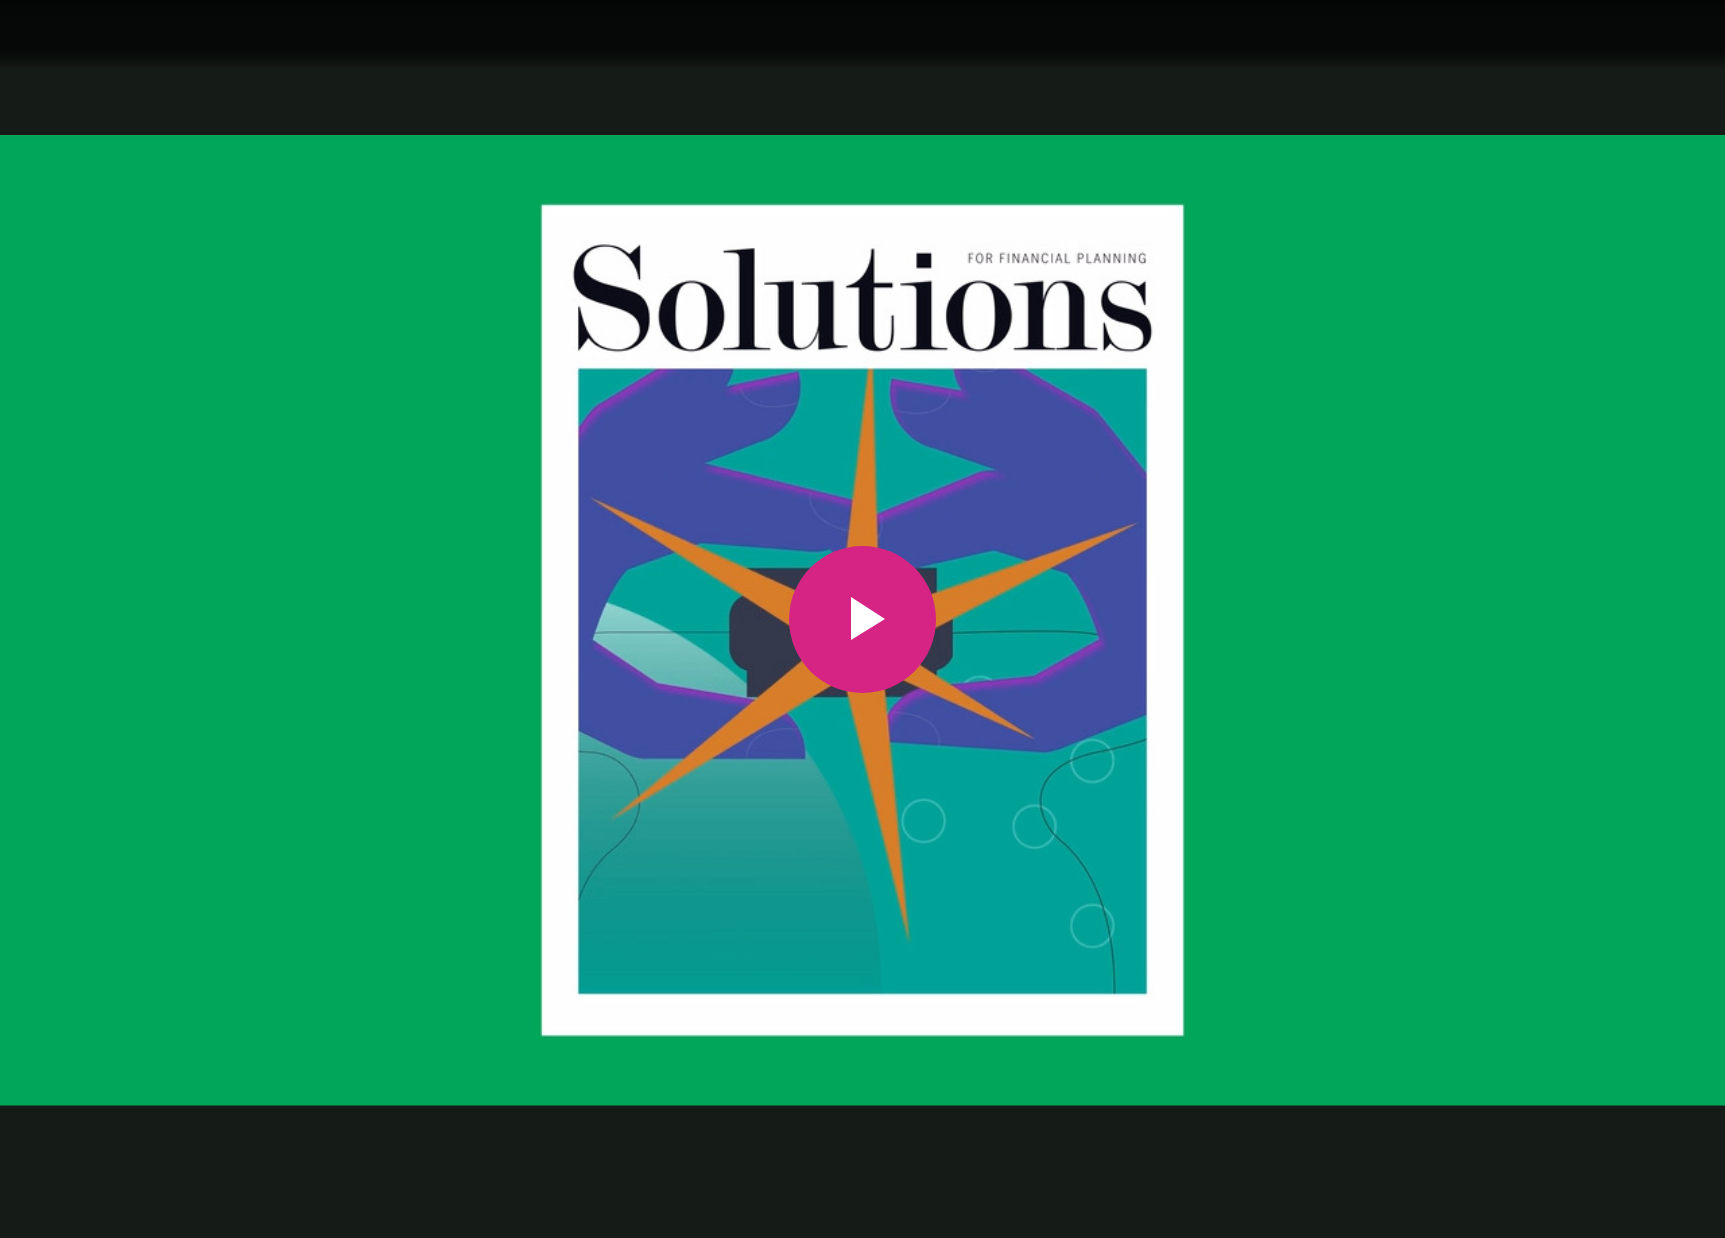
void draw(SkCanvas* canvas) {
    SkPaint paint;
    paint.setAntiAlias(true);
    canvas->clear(0xFF151B17);
    {
        const SkColor colors[] = {0xFF040505, 0xFF060807, 0xFF060807, 0xFF151B17};
        const float stops[] = {0, 0.3f, 0.7f, 1};
        const SkPoint ends[] = {{863, 0}, {863, 71}};
        paint.setShader(SkGradientShader::MakeLinear(ends, colors, stops, 4, SkTileMode::kClamp));
        paint.setAlpha(255);
    }
    canvas->drawRect(SkRect::MakeXYWH(0, 0, 1725, 68), paint);
    canvas->drawImageRect(SkImages::DeferredFromEncodedData(SkData::MakeFromFileName("img1.png")), SkRect::MakeXYWH(0, 135, 1725, 971), SkSamplingOptions());
    paint.setShader(nullptr);
    paint.setColor(0xFFD52484);
    canvas->drawCircle(862.5f, 619.5f, 73.5f, paint);
    paint.setColor(0xFFFFFFFF);
    canvas->drawPath(SkPathBuilder().moveTo(851, 597).lineTo(851, 640).lineTo(885, 619).close().detach(), paint);
}
